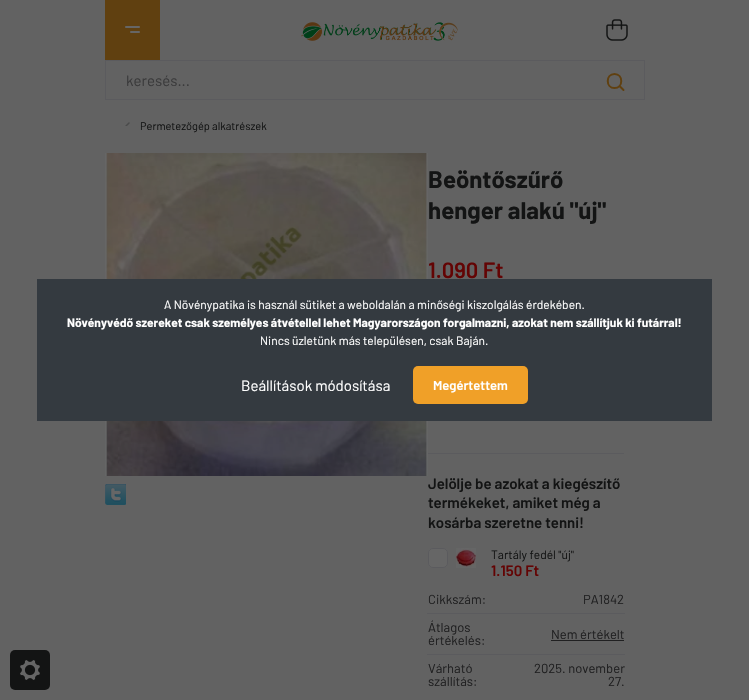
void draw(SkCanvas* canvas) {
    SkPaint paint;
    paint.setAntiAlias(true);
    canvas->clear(0xFF626262);
    paint.setColor(0xFF604010);
    canvas->drawRect(SkRect::MakeXYWH(105, 0, 55, 60), paint);
    paint.setColor(0xFF666666);
    canvas->drawRoundRect(SkRect::MakeXYWH(125, 26, 15, 2), 1, 1, paint);
    canvas->drawRoundRect(SkRect::MakeXYWH(130, 31, 10, 2), 1, 1, paint);
    canvas->drawImageRect(SkImages::DeferredFromEncodedData(SkData::MakeFromFileName("img1.png")), SkRect::MakeXYWH(301, 22, 157, 19), SkSamplingOptions());
    canvas->drawImageRect(SkImages::DeferredFromEncodedData(SkData::MakeFromFileName("img2.png")), SkRect::MakeXYWH(606, 19, 22, 22), SkSamplingOptions());
    paint.setStyle(SkPaint::kStroke_Style);
    paint.setStrokeWidth(1);
    paint.setColor(0xFF5B5B5E);
    canvas->drawRect(SkRect::MakeXYWH(105.5f, 60.5f, 539, 39), paint);
    SkFont font1(fontMgr->matchFamilyStyle("Barlow", SkFontStyle::Normal()), 15);
    font1.setSubpixel(true);
    paint.setStyle(SkPaint::kFill_Style);
    paint.setColor(0xFF3A3A3B);
    canvas->drawString("keresés...", 126, 86, font1, paint);
    paint.setStyle(SkPaint::kStroke_Style);
    paint.setStrokeWidth(2);
    paint.setStrokeCap(SkPaint::kRound_Cap);
    paint.setStrokeJoin(SkPaint::kRound_Join);
    paint.setColor(0xFF604010);
    canvas->drawPath(SkPathBuilder().moveTo(623.5f, 90).lineTo(619.5f, 86).moveTo(614.5f, 88).cubicTo(605.5f, 88, 605.5f, 74, 614.5f, 74).cubicTo(623.5f, 74, 623.5f, 88, 614.5f, 88).close().detach(), paint);
    canvas->drawImageRect(SkImages::DeferredFromEncodedData(SkData::MakeFromFileName("img3.png")), SkRect::MakeXYWH(125, 122, 5, 4), SkSamplingOptions());
    SkFont font2(fontMgr->matchFamilyStyle("Barlow", SkFontStyle::Normal()), 11);
    font2.setSubpixel(true);
    paint.setStyle(SkPaint::kFill_Style);
    paint.setColor(0xFF131414);
    canvas->drawString("Permetezőgép alkatrészek", 140, 130, font2, paint);
    canvas->drawImageRect(SkImages::DeferredFromEncodedData(SkData::MakeFromFileName("img4.png")), SkRect::MakeXYWH(105, 153, 323, 323), SkSamplingOptions());
    canvas->drawImageRect(SkImages::DeferredFromEncodedData(SkData::MakeFromFileName("img5.png")), SkRect::MakeXYWH(105, 484, 21, 21), SkSamplingOptions());
    SkFont font3(fontMgr->matchFamilyStyle("Barlow", SkFontStyle::Bold()), 24);
    font3.setSubpixel(true);
    canvas->drawString("Beöntőszűrő", 428, 188, font3, paint);
    canvas->drawString("henger alakú \"új\"", 428, 219, font3, paint);
    SkFont font4(fontMgr->matchFamilyStyle("Barlow", SkFontStyle(600, SkFontStyle::kNormal_Width, SkFontStyle::kUpright_Slant)), 22);
    font4.setSubpixel(true);
    paint.setColor(0xFF630404);
    canvas->drawString("1.090 Ft", 428, 278, font4, paint);
    paint.setColor(0xFF5B5B5E);
    canvas->drawRect(SkRect::MakeXYWH(428, 453, 196, 1), paint);
    SkFont font5(fontMgr->matchFamilyStyle("Barlow", SkFontStyle(600, SkFontStyle::kNormal_Width, SkFontStyle::kUpright_Slant)), 15);
    font5.setSubpixel(true);
    paint.setColor(0xFF131414);
    canvas->drawString("Jelölje be azokat a kiegészítő", 428, 489, font5, paint);
    canvas->drawString("termékeket, amiket még a", 428, 508, font5, paint);
    canvas->drawString("kosárba szeretne tenni!", 428, 528, font5, paint);
    paint.setColor(0xFF666666);
    canvas->drawRoundRect(SkRect::MakeXYWH(428.5f, 548.5f, 19, 19), 4.5f, 4.5f, paint);
    paint.setStyle(SkPaint::kStroke_Style);
    paint.setStrokeWidth(1);
    paint.setStrokeCap(SkPaint::kButt_Cap);
    paint.setStrokeJoin(SkPaint::kMiter_Join);
    paint.setColor(0xFF5B5B5E);
    canvas->drawRoundRect(SkRect::MakeXYWH(428.5f, 548.5f, 19, 19), 4.5f, 4.5f, paint);
    canvas->drawImageRect(SkImages::DeferredFromEncodedData(SkData::MakeFromFileName("img6.png")), SkRect::MakeXYWH(456, 548, 20, 20), SkSamplingOptions());
    SkFont font6(fontMgr->matchFamilyStyle("Barlow", SkFontStyle::Normal()), 12);
    font6.setSubpixel(true);
    paint.setStyle(SkPaint::kFill_Style);
    paint.setColor(0xFF131414);
    canvas->drawString("Tartály fedél \"új\"", 491, 559, font6, paint);
    paint.setColor(0xFF630404);
    canvas->drawString("1.150 Ft", 491, 576, font5, paint);
    SkFont font7(fontMgr->matchFamilyStyle("Barlow", SkFontStyle::Normal()), 13);
    font7.setSubpixel(true);
    paint.setColor(0xFF202021);
    canvas->drawString("Cikkszám:", 428, 604, font7, paint);
    canvas->drawString("PA1842", 583, 604, font7, paint);
    canvas->drawString("Átlagos", 428, 632, font7, paint);
    canvas->drawString("értékelés:", 428, 645, font7, paint);
    paint.setColor(0xFF5B5B5E);
    canvas->drawRect(SkRect::MakeXYWH(427, 613, 198, 1), paint);
    paint.setColor(0xFF202021);
    canvas->drawString("Nem értékelt", 551, 639, font7, paint);
    canvas->drawRect(SkRect::MakeXYWH(551, 640, 73, 1), paint);
    canvas->drawString("Várható", 428, 673, font7, paint);
    canvas->drawString("szállítás:", 428, 686, font7, paint);
    paint.setColor(0xFF5B5B5E);
    canvas->drawRect(SkRect::MakeXYWH(427, 654, 198, 1), paint);
    paint.setColor(0xFF202021);
    canvas->drawString("2025. november", 534, 673, font7, paint);
    canvas->drawString("27.", 608, 686, font7, paint);
    paint.setColor(0xFF343A40);
    canvas->drawRect(SkRect::MakeXYWH(37, 279, 675, 142), paint);
    paint.setColor(0xFFFFFFFF);
    canvas->drawString("A Növénypatika is használ sütiket a weboldalán a minőségi kiszolgálás érdekében.", 164, 309, font6, paint);
    SkFont font8(fontMgr->matchFamilyStyle("Barlow", SkFontStyle::Bold()), 12);
    font8.setSubpixel(true);
    canvas->drawString("Növényvédő szereket csak személyes átvétellel lehet Magyarországon forgalmazni, azokat nem szállítjuk ki futárral!", 67, 327, font8, paint);
    canvas->drawString("Nincs üzletünk más településen, csak Baján.", 260, 345, font6, paint);
    canvas->drawString("Beállítások módosítása", 241, 391, font1, paint);
    paint.setColor(0xFFF0A028);
    canvas->drawRoundRect(SkRect::MakeXYWH(413, 366, 115, 38), 5, 5, paint);
    SkFont font9(fontMgr->matchFamilyStyle("Barlow", SkFontStyle(600, SkFontStyle::kNormal_Width, SkFontStyle::kUpright_Slant)), 13);
    font9.setSubpixel(true);
    paint.setColor(0xFFFFFFFF);
    canvas->drawString("Megértettem", 433, 390, font9, paint);
    paint.setColor(0xFF131414);
    canvas->drawRoundRect(SkRect::MakeXYWH(10, 650, 40, 40), 5, 5, paint);
    canvas->drawImageRect(SkImages::DeferredFromEncodedData(SkData::MakeFromFileName("img7.png")), SkRect::MakeXYWH(20, 660, 20, 20), SkSamplingOptions());
}
